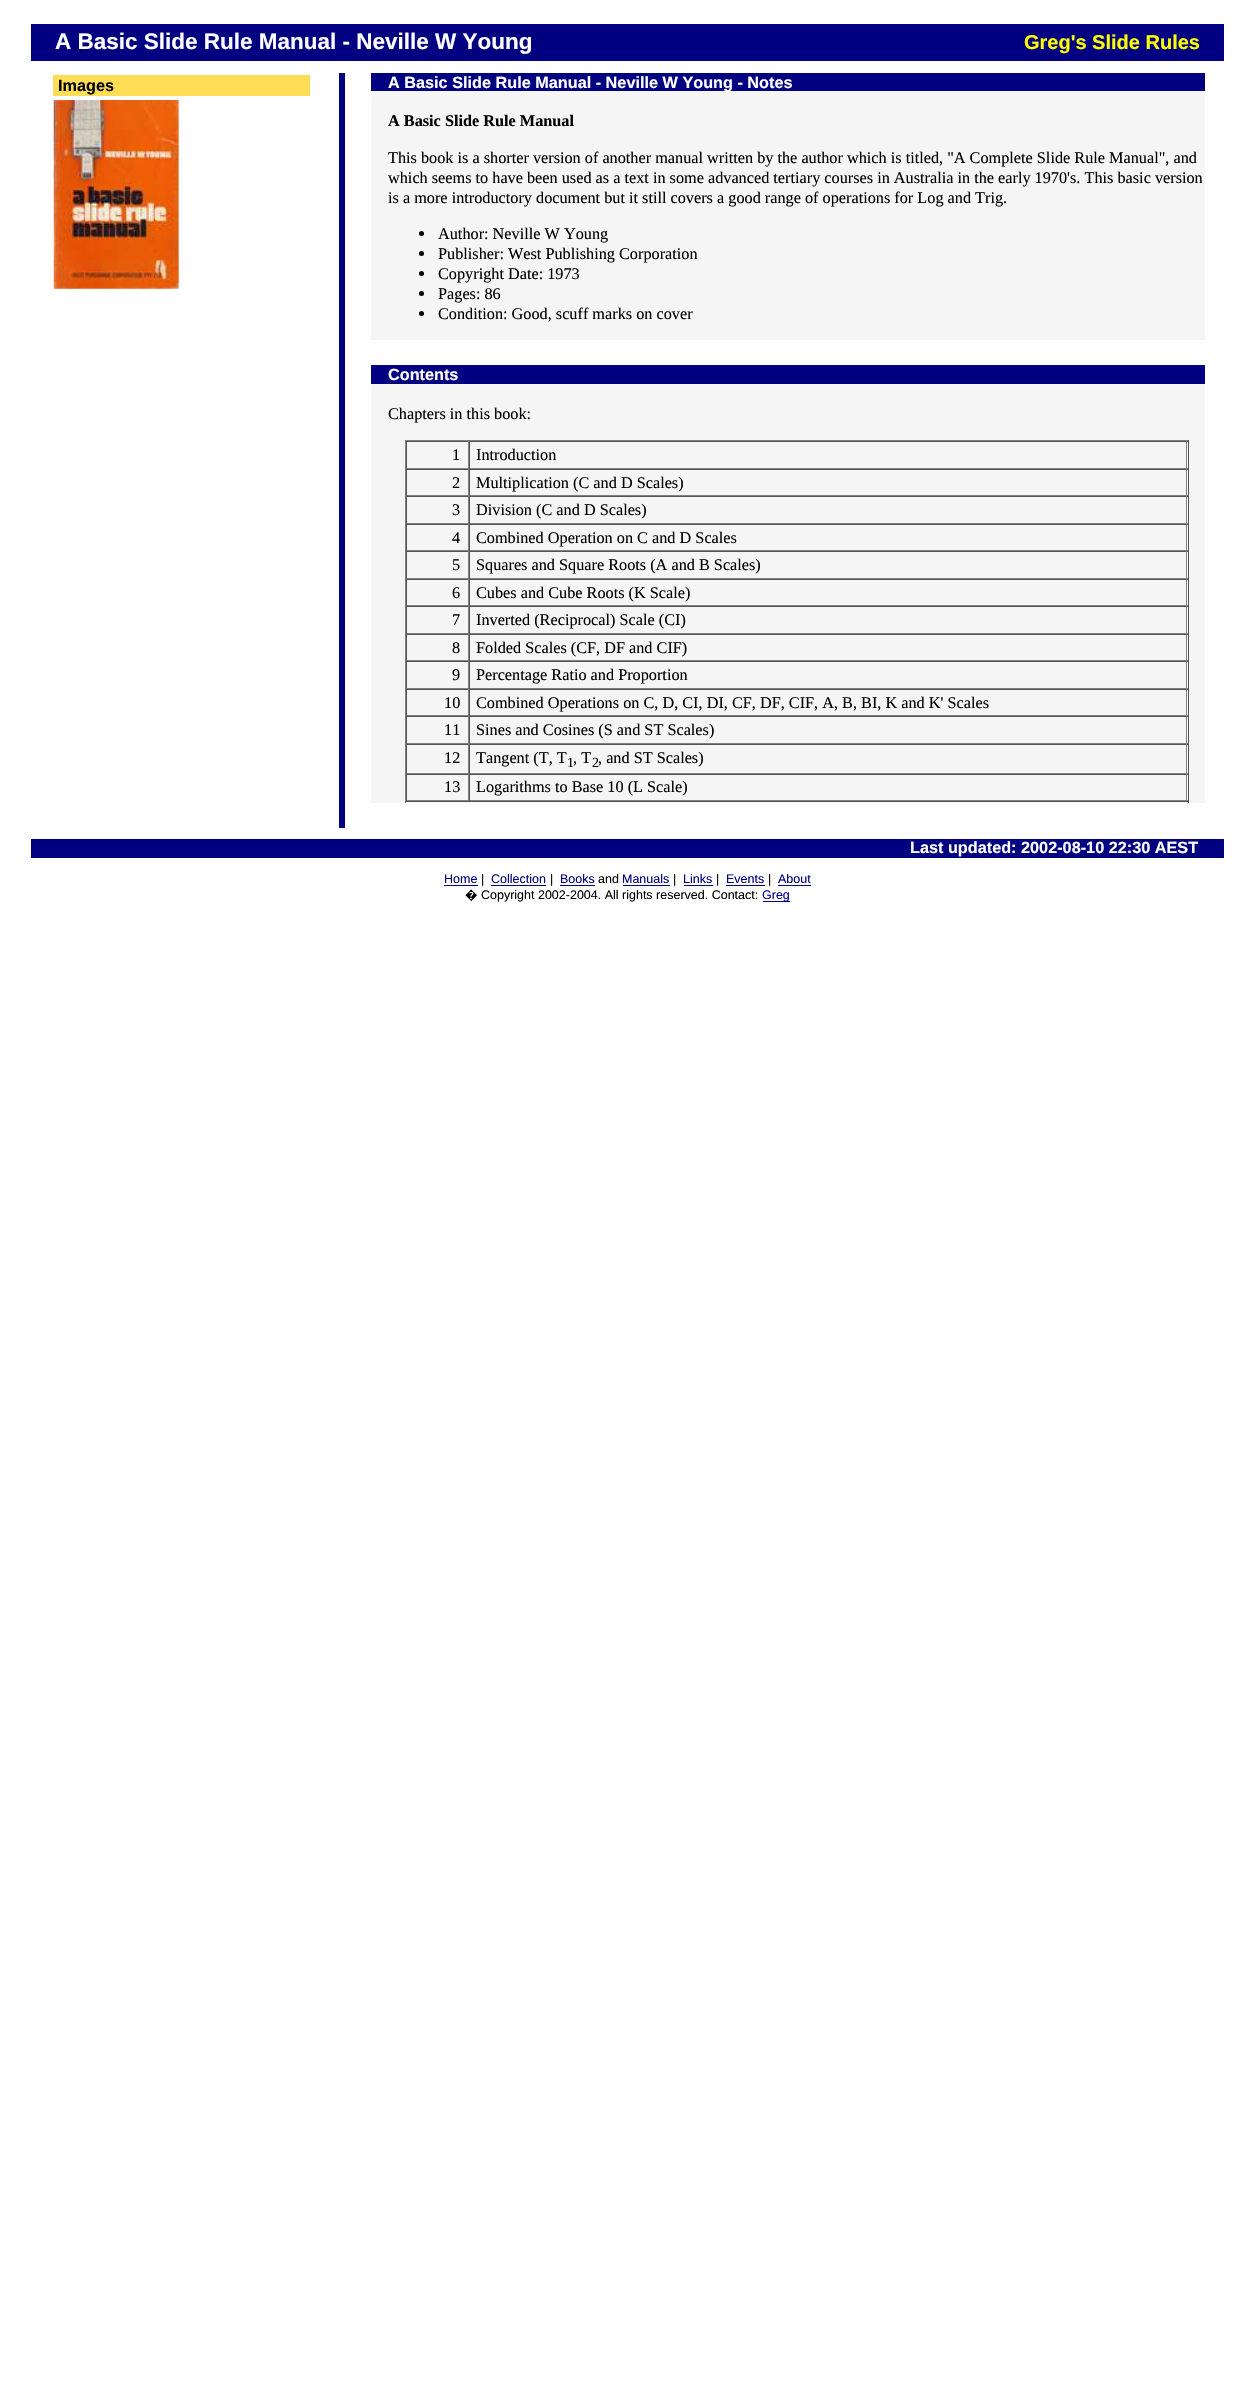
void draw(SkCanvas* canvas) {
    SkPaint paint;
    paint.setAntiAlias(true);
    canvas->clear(0xFFFFFFFF);
    paint.setColor(0xFF000080);
    canvas->drawRect(SkRect::MakeXYWH(31, 24, 1193, 37), paint);
    SkFont font1(fontMgr->matchFamilyStyle("Liberation Sans", SkFontStyle::Bold()), 22.5f);
    font1.setSubpixel(true);
    paint.setColor(0xFFFFFFFF);
    canvas->drawString("A Basic Slide Rule Manual - Neville W Young", 55, 49, font1, paint);
    SkFont font2(fontMgr->matchFamilyStyle("Liberation Sans", SkFontStyle::Bold()), 20);
    font2.setSubpixel(true);
    paint.setColor(0xFFFFFF00);
    canvas->drawString("Greg's Slide Rules", 1024, 49, font2, paint);
    paint.setColor(0xFFFFDD55);
    canvas->drawRect(SkRect::MakeXYWH(53, 75, 257, 21), paint);
    SkFont font3(fontMgr->matchFamilyStyle("Liberation Sans", SkFontStyle::Bold()), 16.25f);
    font3.setSubpixel(true);
    paint.setColor(0xFF000000);
    canvas->drawString("Images", 58, 91, font3, paint);
    canvas->drawImageRect(SkImages::DeferredFromEncodedData(SkData::MakeFromFileName("img1.png")), SkRect::MakeXYWH(53, 100, 126, 189), SkSamplingOptions());
    paint.setColor(0xFF000080);
    canvas->drawRect(SkRect::MakeXYWH(339, 73, 6, 755), paint);
    canvas->drawRect(SkRect::MakeXYWH(371, 73, 834, 18), paint);
    paint.setColor(0xFFF5F5F5);
    canvas->drawRect(SkRect::MakeXYWH(371, 91, 834, 249), paint);
    paint.setColor(0xFFFFFFFF);
    canvas->drawString("A Basic Slide Rule Manual - Neville W Young - Notes", 388, 88, font3, paint);
    SkFont font4(fontMgr->matchFamilyStyle("Liberation Serif", SkFontStyle::Bold()), 16.25f);
    font4.setSubpixel(true);
    paint.setColor(0xFF000000);
    canvas->drawString("A Basic Slide Rule Manual", 388, 126, font4, paint);
    SkFont font5(fontMgr->matchFamilyStyle("Liberation Serif", SkFontStyle::Normal()), 16.25f);
    font5.setSubpixel(true);
    canvas->drawString("This book is a shorter version of another manual written by the author which is titled, \"A Complete Slide Rule Manual\", and", 388, 163, font5, paint);
    canvas->drawString("which seems to have been used as a text in some advanced tertiary courses in Australia in the early 1970's. This basic version", 388, 183, font5, paint);
    canvas->drawString("is a more introductory document but it still covers a good range of operations for Log and Trig.", 388, 203, font5, paint);
    canvas->drawCircle(421.5f, 233.5f, 2.5f, paint);
    canvas->drawString("Author: Neville W Young", 438, 239, font5, paint);
    canvas->drawCircle(421.5f, 253.5f, 2.5f, paint);
    canvas->drawString("Publisher: West Publishing Corporation", 438, 259, font5, paint);
    canvas->drawCircle(421.5f, 273.5f, 2.5f, paint);
    canvas->drawString("Copyright Date: 1973", 438, 279, font5, paint);
    canvas->drawCircle(421.5f, 293.5f, 2.5f, paint);
    canvas->drawString("Pages: 86", 438, 299, font5, paint);
    canvas->drawCircle(421.5f, 313.5f, 2.5f, paint);
    canvas->drawString("Condition: Good, scuff marks on cover", 438, 319, font5, paint);
    paint.setColor(0xFF000080);
    canvas->drawRect(SkRect::MakeXYWH(371, 365, 834, 19), paint);
    paint.setColor(0xFFFFFFFF);
    canvas->drawString("Contents", 388, 380, font3, paint);
    paint.setColor(0xFFF5F5F5);
    canvas->drawRect(SkRect::MakeXYWH(371, 384, 834, 419), paint);
    paint.setColor(0xFF000000);
    canvas->drawString("Chapters in this book:", 388, 419, font5, paint);
    paint.setColor(0xFF808080);
    canvas->drawRect(SkRect::MakeXYWH(405, 440, 784, 1), paint);
    paint.setColor(0xFF555555);
    canvas->drawRect(SkRect::MakeXYWH(1188, 440, 1, 363), paint);
    canvas->drawRect(SkRect::MakeXYWH(405, 801, 784, 1), paint);
    paint.setColor(0xFF808080);
    canvas->drawRect(SkRect::MakeXYWH(405, 440, 1, 363), paint);
    paint.setColor(0xFF555555);
    canvas->drawRect(SkRect::MakeXYWH(406, 441, 782, 1), paint);
    paint.setColor(0xFF808080);
    canvas->drawRect(SkRect::MakeXYWH(468, 441, 1, 28), paint);
    canvas->drawRect(SkRect::MakeXYWH(406, 468, 63, 1), paint);
    paint.setColor(0xFF555555);
    canvas->drawRect(SkRect::MakeXYWH(406, 441, 1, 28), paint);
    paint.setColor(0xFF000000);
    canvas->drawString("1", 452, 460, font5, paint);
    paint.setColor(0xFF808080);
    canvas->drawRect(SkRect::MakeXYWH(1186, 441, 1, 28), paint);
    canvas->drawRect(SkRect::MakeXYWH(469, 468, 719, 1), paint);
    paint.setColor(0xFF555555);
    canvas->drawRect(SkRect::MakeXYWH(469, 441, 1, 28), paint);
    paint.setColor(0xFF000000);
    canvas->drawString("Introduction", 476, 460, font5, paint);
    paint.setColor(0xFF555555);
    canvas->drawRect(SkRect::MakeXYWH(406, 469, 782, 1), paint);
    paint.setColor(0xFF808080);
    canvas->drawRect(SkRect::MakeXYWH(468, 469, 1, 27), paint);
    canvas->drawRect(SkRect::MakeXYWH(406, 495, 63, 1), paint);
    paint.setColor(0xFF555555);
    canvas->drawRect(SkRect::MakeXYWH(406, 469, 1, 27), paint);
    paint.setColor(0xFF000000);
    canvas->drawString("2", 452, 488, font5, paint);
    paint.setColor(0xFF808080);
    canvas->drawRect(SkRect::MakeXYWH(1186, 469, 1, 27), paint);
    canvas->drawRect(SkRect::MakeXYWH(469, 495, 719, 1), paint);
    paint.setColor(0xFF555555);
    canvas->drawRect(SkRect::MakeXYWH(469, 469, 1, 27), paint);
    paint.setColor(0xFF000000);
    canvas->drawString("Multiplication (C and D Scales)", 476, 488, font5, paint);
    paint.setColor(0xFF555555);
    canvas->drawRect(SkRect::MakeXYWH(406, 496, 782, 1), paint);
    paint.setColor(0xFF808080);
    canvas->drawRect(SkRect::MakeXYWH(468, 496, 1, 28), paint);
    canvas->drawRect(SkRect::MakeXYWH(406, 523, 63, 1), paint);
    paint.setColor(0xFF555555);
    canvas->drawRect(SkRect::MakeXYWH(406, 496, 1, 28), paint);
    paint.setColor(0xFF000000);
    canvas->drawString("3", 452, 515, font5, paint);
    paint.setColor(0xFF808080);
    canvas->drawRect(SkRect::MakeXYWH(1186, 496, 1, 28), paint);
    canvas->drawRect(SkRect::MakeXYWH(469, 523, 719, 1), paint);
    paint.setColor(0xFF555555);
    canvas->drawRect(SkRect::MakeXYWH(469, 496, 1, 28), paint);
    paint.setColor(0xFF000000);
    canvas->drawString("Division (C and D Scales)", 476, 515, font5, paint);
    paint.setColor(0xFF555555);
    canvas->drawRect(SkRect::MakeXYWH(406, 524, 782, 1), paint);
    paint.setColor(0xFF808080);
    canvas->drawRect(SkRect::MakeXYWH(468, 524, 1, 27), paint);
    canvas->drawRect(SkRect::MakeXYWH(406, 550, 63, 1), paint);
    paint.setColor(0xFF555555);
    canvas->drawRect(SkRect::MakeXYWH(406, 524, 1, 27), paint);
    paint.setColor(0xFF000000);
    canvas->drawString("4", 452, 543, font5, paint);
    paint.setColor(0xFF808080);
    canvas->drawRect(SkRect::MakeXYWH(1186, 524, 1, 27), paint);
    canvas->drawRect(SkRect::MakeXYWH(469, 550, 719, 1), paint);
    paint.setColor(0xFF555555);
    canvas->drawRect(SkRect::MakeXYWH(469, 524, 1, 27), paint);
    paint.setColor(0xFF000000);
    canvas->drawString("Combined Operation on C and D Scales", 476, 543, font5, paint);
    paint.setColor(0xFF555555);
    canvas->drawRect(SkRect::MakeXYWH(406, 551, 782, 1), paint);
    paint.setColor(0xFF808080);
    canvas->drawRect(SkRect::MakeXYWH(468, 551, 1, 28), paint);
    canvas->drawRect(SkRect::MakeXYWH(406, 578, 63, 1), paint);
    paint.setColor(0xFF555555);
    canvas->drawRect(SkRect::MakeXYWH(406, 551, 1, 28), paint);
    paint.setColor(0xFF000000);
    canvas->drawString("5", 452, 570, font5, paint);
    paint.setColor(0xFF808080);
    canvas->drawRect(SkRect::MakeXYWH(1186, 551, 1, 28), paint);
    canvas->drawRect(SkRect::MakeXYWH(469, 578, 719, 1), paint);
    paint.setColor(0xFF555555);
    canvas->drawRect(SkRect::MakeXYWH(469, 551, 1, 28), paint);
    paint.setColor(0xFF000000);
    canvas->drawString("Squares and Square Roots (A and B Scales)", 476, 570, font5, paint);
    paint.setColor(0xFF555555);
    canvas->drawRect(SkRect::MakeXYWH(406, 579, 782, 1), paint);
    paint.setColor(0xFF808080);
    canvas->drawRect(SkRect::MakeXYWH(468, 579, 1, 27), paint);
    canvas->drawRect(SkRect::MakeXYWH(406, 605, 63, 1), paint);
    paint.setColor(0xFF555555);
    canvas->drawRect(SkRect::MakeXYWH(406, 579, 1, 27), paint);
    paint.setColor(0xFF000000);
    canvas->drawString("6", 452, 598, font5, paint);
    paint.setColor(0xFF808080);
    canvas->drawRect(SkRect::MakeXYWH(1186, 579, 1, 27), paint);
    canvas->drawRect(SkRect::MakeXYWH(469, 605, 719, 1), paint);
    paint.setColor(0xFF555555);
    canvas->drawRect(SkRect::MakeXYWH(469, 579, 1, 27), paint);
    paint.setColor(0xFF000000);
    canvas->drawString("Cubes and Cube Roots (K Scale)", 476, 598, font5, paint);
    paint.setColor(0xFF555555);
    canvas->drawRect(SkRect::MakeXYWH(406, 606, 782, 1), paint);
    paint.setColor(0xFF808080);
    canvas->drawRect(SkRect::MakeXYWH(468, 606, 1, 28), paint);
    canvas->drawRect(SkRect::MakeXYWH(406, 633, 63, 1), paint);
    paint.setColor(0xFF555555);
    canvas->drawRect(SkRect::MakeXYWH(406, 606, 1, 28), paint);
    paint.setColor(0xFF000000);
    canvas->drawString("7", 452, 625, font5, paint);
    paint.setColor(0xFF808080);
    canvas->drawRect(SkRect::MakeXYWH(1186, 606, 1, 28), paint);
    canvas->drawRect(SkRect::MakeXYWH(469, 633, 719, 1), paint);
    paint.setColor(0xFF555555);
    canvas->drawRect(SkRect::MakeXYWH(469, 606, 1, 28), paint);
    paint.setColor(0xFF000000);
    canvas->drawString("Inverted (Reciprocal) Scale (CI)", 476, 625, font5, paint);
    paint.setColor(0xFF555555);
    canvas->drawRect(SkRect::MakeXYWH(406, 634, 782, 1), paint);
    paint.setColor(0xFF808080);
    canvas->drawRect(SkRect::MakeXYWH(468, 634, 1, 27), paint);
    canvas->drawRect(SkRect::MakeXYWH(406, 660, 63, 1), paint);
    paint.setColor(0xFF555555);
    canvas->drawRect(SkRect::MakeXYWH(406, 634, 1, 27), paint);
    paint.setColor(0xFF000000);
    canvas->drawString("8", 452, 653, font5, paint);
    paint.setColor(0xFF808080);
    canvas->drawRect(SkRect::MakeXYWH(1186, 634, 1, 27), paint);
    canvas->drawRect(SkRect::MakeXYWH(469, 660, 719, 1), paint);
    paint.setColor(0xFF555555);
    canvas->drawRect(SkRect::MakeXYWH(469, 634, 1, 27), paint);
    paint.setColor(0xFF000000);
    canvas->drawString("Folded Scales (CF, DF and CIF)", 476, 653, font5, paint);
    paint.setColor(0xFF555555);
    canvas->drawRect(SkRect::MakeXYWH(406, 661, 782, 1), paint);
    paint.setColor(0xFF808080);
    canvas->drawRect(SkRect::MakeXYWH(468, 661, 1, 28), paint);
    canvas->drawRect(SkRect::MakeXYWH(406, 688, 63, 1), paint);
    paint.setColor(0xFF555555);
    canvas->drawRect(SkRect::MakeXYWH(406, 661, 1, 28), paint);
    paint.setColor(0xFF000000);
    canvas->drawString("9", 452, 680, font5, paint);
    paint.setColor(0xFF808080);
    canvas->drawRect(SkRect::MakeXYWH(1186, 661, 1, 28), paint);
    canvas->drawRect(SkRect::MakeXYWH(469, 688, 719, 1), paint);
    paint.setColor(0xFF555555);
    canvas->drawRect(SkRect::MakeXYWH(469, 661, 1, 28), paint);
    paint.setColor(0xFF000000);
    canvas->drawString("Percentage Ratio and Proportion", 476, 680, font5, paint);
    paint.setColor(0xFF555555);
    canvas->drawRect(SkRect::MakeXYWH(406, 689, 782, 1), paint);
    paint.setColor(0xFF808080);
    canvas->drawRect(SkRect::MakeXYWH(468, 689, 1, 27), paint);
    canvas->drawRect(SkRect::MakeXYWH(406, 715, 63, 1), paint);
    paint.setColor(0xFF555555);
    canvas->drawRect(SkRect::MakeXYWH(406, 689, 1, 27), paint);
    paint.setColor(0xFF000000);
    canvas->drawString("10", 444, 708, font5, paint);
    paint.setColor(0xFF808080);
    canvas->drawRect(SkRect::MakeXYWH(1186, 689, 1, 27), paint);
    canvas->drawRect(SkRect::MakeXYWH(469, 715, 719, 1), paint);
    paint.setColor(0xFF555555);
    canvas->drawRect(SkRect::MakeXYWH(469, 689, 1, 27), paint);
    paint.setColor(0xFF000000);
    canvas->drawString("Combined Operations on C, D, CI, DI, CF, DF, CIF, A, B, BI, K and K' Scales", 476, 708, font5, paint);
    paint.setColor(0xFF555555);
    canvas->drawRect(SkRect::MakeXYWH(406, 716, 782, 1), paint);
    paint.setColor(0xFF808080);
    canvas->drawRect(SkRect::MakeXYWH(468, 716, 1, 28), paint);
    canvas->drawRect(SkRect::MakeXYWH(406, 743, 63, 1), paint);
    paint.setColor(0xFF555555);
    canvas->drawRect(SkRect::MakeXYWH(406, 716, 1, 28), paint);
    paint.setColor(0xFF000000);
    canvas->drawString("11", 444, 735, font5, paint);
    paint.setColor(0xFF808080);
    canvas->drawRect(SkRect::MakeXYWH(1186, 716, 1, 28), paint);
    canvas->drawRect(SkRect::MakeXYWH(469, 743, 719, 1), paint);
    paint.setColor(0xFF555555);
    canvas->drawRect(SkRect::MakeXYWH(469, 716, 1, 28), paint);
    paint.setColor(0xFF000000);
    canvas->drawString("Sines and Cosines (S and ST Scales)", 476, 735, font5, paint);
    paint.setColor(0xFF555555);
    canvas->drawRect(SkRect::MakeXYWH(406, 744, 782, 1), paint);
    paint.setColor(0xFF808080);
    canvas->drawRect(SkRect::MakeXYWH(468, 744, 1, 30), paint);
    canvas->drawRect(SkRect::MakeXYWH(406, 773, 63, 1), paint);
    paint.setColor(0xFF555555);
    canvas->drawRect(SkRect::MakeXYWH(406, 744, 1, 30), paint);
    paint.setColor(0xFF000000);
    canvas->drawString("12", 444, 763, font5, paint);
    paint.setColor(0xFF808080);
    canvas->drawRect(SkRect::MakeXYWH(1186, 744, 1, 30), paint);
    canvas->drawRect(SkRect::MakeXYWH(469, 773, 719, 1), paint);
    paint.setColor(0xFF555555);
    canvas->drawRect(SkRect::MakeXYWH(469, 744, 1, 30), paint);
    paint.setColor(0xFF000000);
    canvas->drawString("Tangent (T, T", 476, 763, font5, paint);
    SkFont font6(fontMgr->matchFamilyStyle("Liberation Serif", SkFontStyle::Normal()), 14);
    font6.setSubpixel(true);
    canvas->drawString("1", 567, 767, font6, paint);
    canvas->drawString(", T", 573, 763, font5, paint);
    canvas->drawString("2", 592, 767, font6, paint);
    canvas->drawString(", and ST Scales)", 598, 763, font5, paint);
    paint.setColor(0xFF555555);
    canvas->drawRect(SkRect::MakeXYWH(406, 774, 782, 1), paint);
    paint.setColor(0xFF808080);
    canvas->drawRect(SkRect::MakeXYWH(468, 774, 1, 27), paint);
    canvas->drawRect(SkRect::MakeXYWH(406, 800, 63, 1), paint);
    paint.setColor(0xFF555555);
    canvas->drawRect(SkRect::MakeXYWH(406, 774, 1, 27), paint);
    paint.setColor(0xFF000000);
    canvas->drawString("13", 444, 792, font5, paint);
    paint.setColor(0xFF808080);
    canvas->drawRect(SkRect::MakeXYWH(1186, 774, 1, 27), paint);
    canvas->drawRect(SkRect::MakeXYWH(469, 800, 719, 1), paint);
    paint.setColor(0xFF555555);
    canvas->drawRect(SkRect::MakeXYWH(469, 774, 1, 27), paint);
    paint.setColor(0xFF000000);
    canvas->drawString("Logarithms to Base 10 (L Scale)", 476, 792, font5, paint);
    paint.setColor(0xFF000080);
    canvas->drawRect(SkRect::MakeXYWH(31, 839, 1193, 19), paint);
    paint.setColor(0xFFFFFFFF);
    canvas->drawString("Last updated: 2002-08-10 22:30 AEST", 910, 853, font3, paint);
    SkFont font7(fontMgr->matchFamilyStyle("Liberation Sans", SkFontStyle::Normal()), 12.5f);
    font7.setSubpixel(true);
    paint.setColor(0xFF000080);
    canvas->drawString("Home", 444, 883, font7, paint);
    canvas->drawRect(SkRect::MakeXYWH(444, 885, 34, 1), paint);
    paint.setColor(0xFF000000);
    canvas->drawString("|", 481, 883, font7, paint);
    paint.setColor(0xFF000080);
    canvas->drawString("Collection", 491, 883, font7, paint);
    canvas->drawRect(SkRect::MakeXYWH(491, 885, 55, 1), paint);
    paint.setColor(0xFF000000);
    canvas->drawString("|", 550, 883, font7, paint);
    paint.setColor(0xFF000080);
    canvas->drawString("Books", 560, 883, font7, paint);
    canvas->drawRect(SkRect::MakeXYWH(560, 885, 35, 1), paint);
    paint.setColor(0xFF000000);
    canvas->drawString("and", 598, 883, font7, paint);
    paint.setColor(0xFF000080);
    canvas->drawString("Manuals", 622, 883, font7, paint);
    canvas->drawRect(SkRect::MakeXYWH(623, 885, 47, 1), paint);
    paint.setColor(0xFF000000);
    canvas->drawString("|", 673, 883, font7, paint);
    paint.setColor(0xFF000080);
    canvas->drawString("Links", 683, 883, font7, paint);
    canvas->drawRect(SkRect::MakeXYWH(684, 885, 29, 1), paint);
    paint.setColor(0xFF000000);
    canvas->drawString("|", 716, 883, font7, paint);
    paint.setColor(0xFF000080);
    canvas->drawString("Events", 726, 883, font7, paint);
    canvas->drawRect(SkRect::MakeXYWH(726, 885, 39, 1), paint);
    paint.setColor(0xFF000000);
    canvas->drawString("|", 768, 883, font7, paint);
    paint.setColor(0xFF000080);
    canvas->drawString("About", 778, 883, font7, paint);
    canvas->drawRect(SkRect::MakeXYWH(778, 885, 33, 1), paint);
    SkFont font8(fontMgr->matchFamilyStyle("Noto Sans", SkFontStyle::Normal()), 12.5f);
    font8.setSubpixel(true);
    paint.setColor(0xFF000000);
    canvas->drawString("�", 465, 899, font8, paint);
    canvas->drawString("Copyright 2002-2004. All rights reserved. Contact:", 481, 899, font7, paint);
    paint.setColor(0xFF000080);
    canvas->drawRect(SkRect::MakeXYWH(763, 901, 27, 1), paint);
    paint.setColor(0xFF00008B);
    canvas->drawString("Greg", 762, 899, font7, paint);
}
